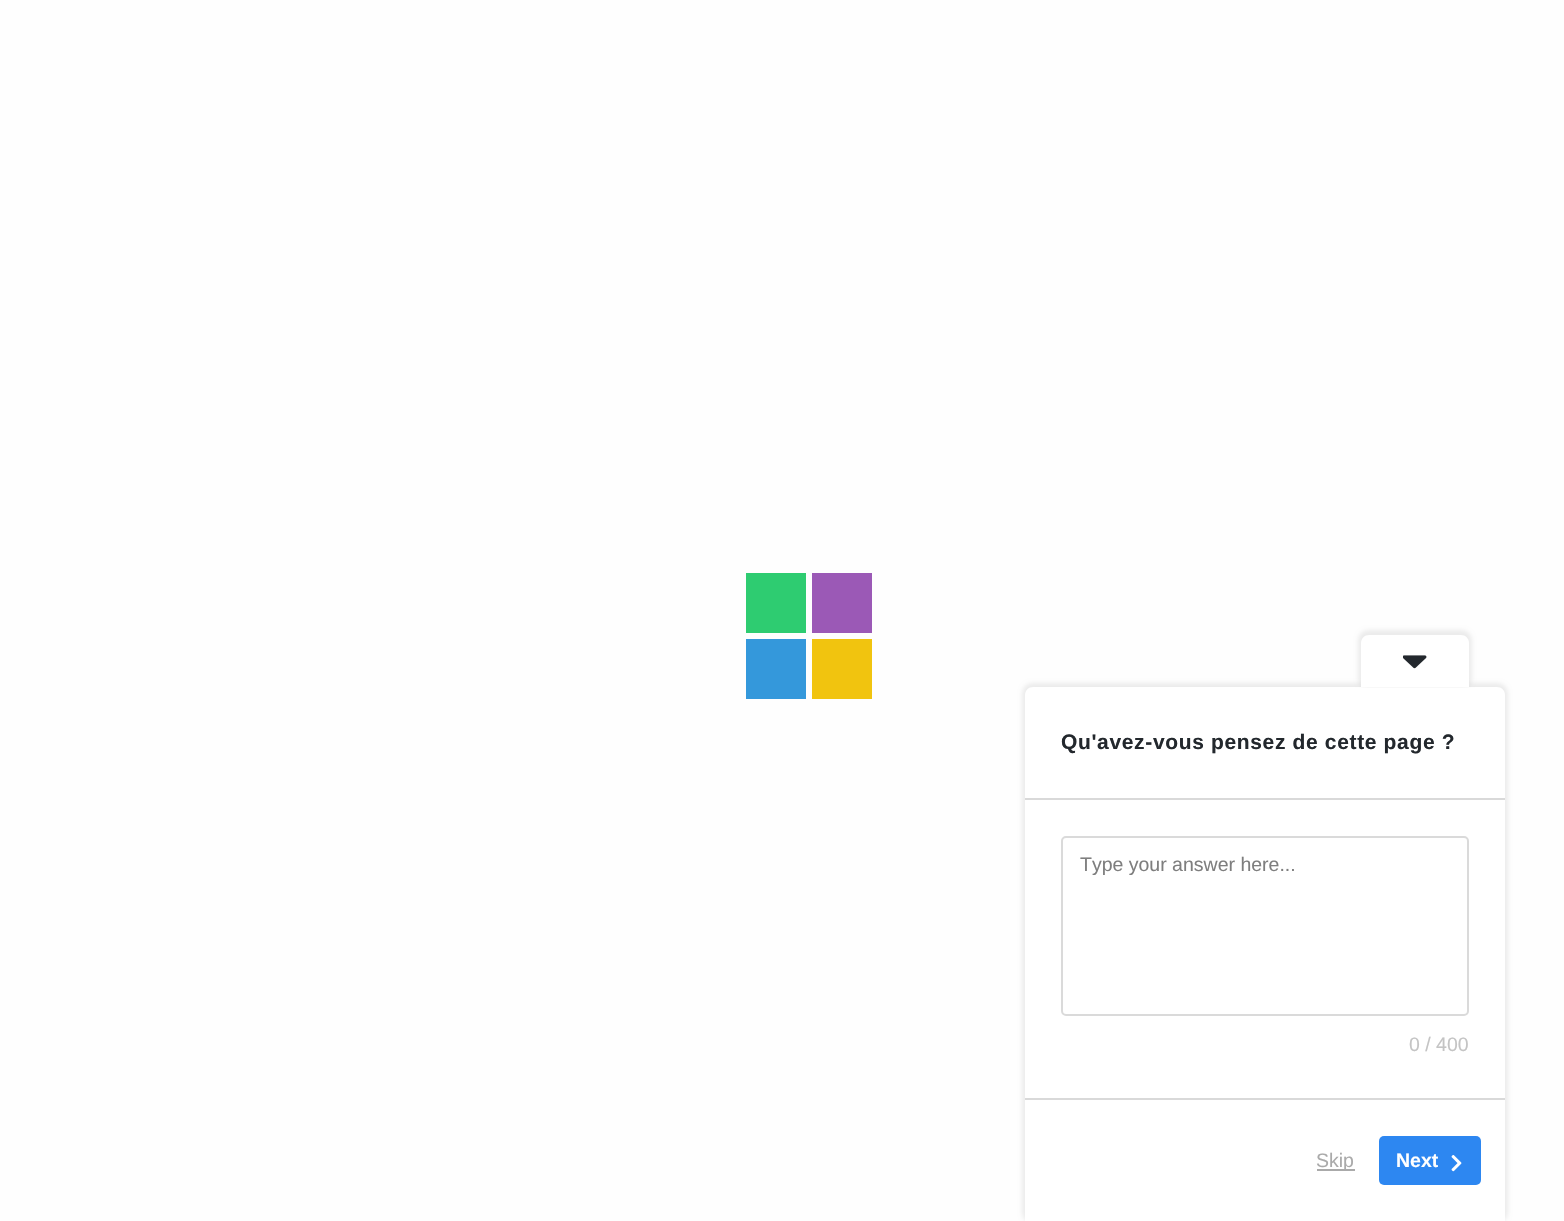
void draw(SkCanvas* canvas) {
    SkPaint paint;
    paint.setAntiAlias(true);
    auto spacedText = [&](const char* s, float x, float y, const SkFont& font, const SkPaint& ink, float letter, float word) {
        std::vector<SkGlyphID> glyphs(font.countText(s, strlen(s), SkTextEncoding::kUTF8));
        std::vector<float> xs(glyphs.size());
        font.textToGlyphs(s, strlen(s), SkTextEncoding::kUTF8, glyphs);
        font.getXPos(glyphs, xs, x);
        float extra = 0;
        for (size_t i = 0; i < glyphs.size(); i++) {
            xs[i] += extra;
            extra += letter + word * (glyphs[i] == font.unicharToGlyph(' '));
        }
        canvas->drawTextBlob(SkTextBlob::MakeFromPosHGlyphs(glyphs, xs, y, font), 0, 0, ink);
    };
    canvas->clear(0xFFFEFEFE);
    paint.setColor(0xFF2ECC71);
    canvas->drawRect(SkRect::MakeXYWH(746, 573, 60, 60), paint);
    paint.setColor(0xFF9B59B6);
    canvas->drawRect(SkRect::MakeXYWH(812, 573, 60, 60), paint);
    paint.setColor(0xFF3498DB);
    canvas->drawRect(SkRect::MakeXYWH(746, 639, 60, 60), paint);
    paint.setColor(0xFFF1C40F);
    canvas->drawRect(SkRect::MakeXYWH(812, 639, 60, 60), paint);
    paint.setColor(0x12000000);
    paint.setMaskFilter(SkMaskFilter::MakeBlur(kNormal_SkBlurStyle, 2));
    canvas->drawRoundRect(SkRect::MakeXYWH(1022, 683, 486, 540), 11, 11, paint);
    paint.setMaskFilter(nullptr);
    paint.setColor(0xFFFFFFFF);
    canvas->drawPath(SkPathBuilder().moveTo(1033, 687).lineTo(1497, 687).cubicTo(1501.5f, 687, 1505, 690.5f, 1505, 695).lineTo(1505, 1221).lineTo(1025, 1221).lineTo(1025, 695).cubicTo(1025, 690.5f, 1028.5f, 687, 1033, 687).close().detach(), paint);
    canvas->save();
    canvas->clipPath(SkPathBuilder().moveTo(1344.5f, 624.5f).lineTo(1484.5f, 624.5f).lineTo(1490, 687.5f).lineTo(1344.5f, 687.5f).close().detach(), true);
    paint.setColor(0x12000000);
    paint.setMaskFilter(SkMaskFilter::MakeBlur(kNormal_SkBlurStyle, 2));
    canvas->drawRoundRect(SkRect::MakeXYWH(1358, 630, 114, 59), 11, 11, paint);
    paint.setMaskFilter(nullptr);
    canvas->restore();
    paint.setColor(0xFFFFFFFF);
    canvas->drawPath(SkPathBuilder().moveTo(1369, 635).lineTo(1461, 635).cubicTo(1465.5f, 635, 1469, 638.5f, 1469, 643).lineTo(1469, 687).lineTo(1361, 687).lineTo(1361, 643).cubicTo(1361, 638.5f, 1364.5f, 635, 1369, 635).close().detach(), paint);
    canvas->drawImageRect(SkImages::DeferredFromEncodedData(SkData::MakeFromFileName("img1.png")), SkRect::MakeXYWH(1403, 655, 24, 14), SkSamplingOptions());
    SkFont font1(fontMgr->matchFamilyStyle("Liberation Sans", SkFontStyle::Bold()), 21);
    font1.setSubpixel(true);
    paint.setColor(0xFF23282D);
    spacedText("Qu'avez-vous pensez de cette page ?", 1061, 749, font1, paint, 0.65f, 0);
    paint.setColor(0xFFD9D9D9);
    canvas->drawRect(SkRect::MakeXYWH(1025, 798, 480, 2), paint);
    canvas->drawRect(SkRect::MakeXYWH(1025, 1098, 480, 2), paint);
    paint.setStyle(SkPaint::kStroke_Style);
    paint.setStrokeWidth(2);
    paint.setColor(0xFFDADADA);
    canvas->drawRoundRect(SkRect::MakeXYWH(1062, 837, 406, 178), 4, 4, paint);
    SkFont font2(fontMgr->matchFamilyStyle("Liberation Sans", SkFontStyle::Normal()), 19.5f);
    font2.setSubpixel(true);
    paint.setStyle(SkPaint::kFill_Style);
    paint.setColor(0xFF7E7E7E);
    canvas->drawString("Type your answer here...", 1080, 871, font2, paint);
    paint.setColor(0xFFC4C4C4);
    canvas->drawString("0 / 400", 1409, 1051, font2, paint);
    paint.setColor(0xFFAAAAAA);
    canvas->drawRect(SkRect::MakeXYWH(1317, 1169, 38, 2), paint);
    canvas->drawString("Skip", 1316, 1167, font2, paint);
    paint.setColor(0xFF2D87F1);
    canvas->drawRoundRect(SkRect::MakeXYWH(1379, 1136, 102, 49), 5, 5, paint);
    SkFont font3(fontMgr->matchFamilyStyle("Liberation Sans", SkFontStyle::Bold()), 19.5f);
    font3.setSubpixel(true);
    paint.setColor(0xFFFFFFFF);
    canvas->drawString("Next", 1396, 1167, font3, paint);
    canvas->drawImageRect(SkImages::DeferredFromEncodedData(SkData::MakeFromFileName("img2.png")), SkRect::MakeXYWH(1451, 1155, 11, 17), SkSamplingOptions());
}
